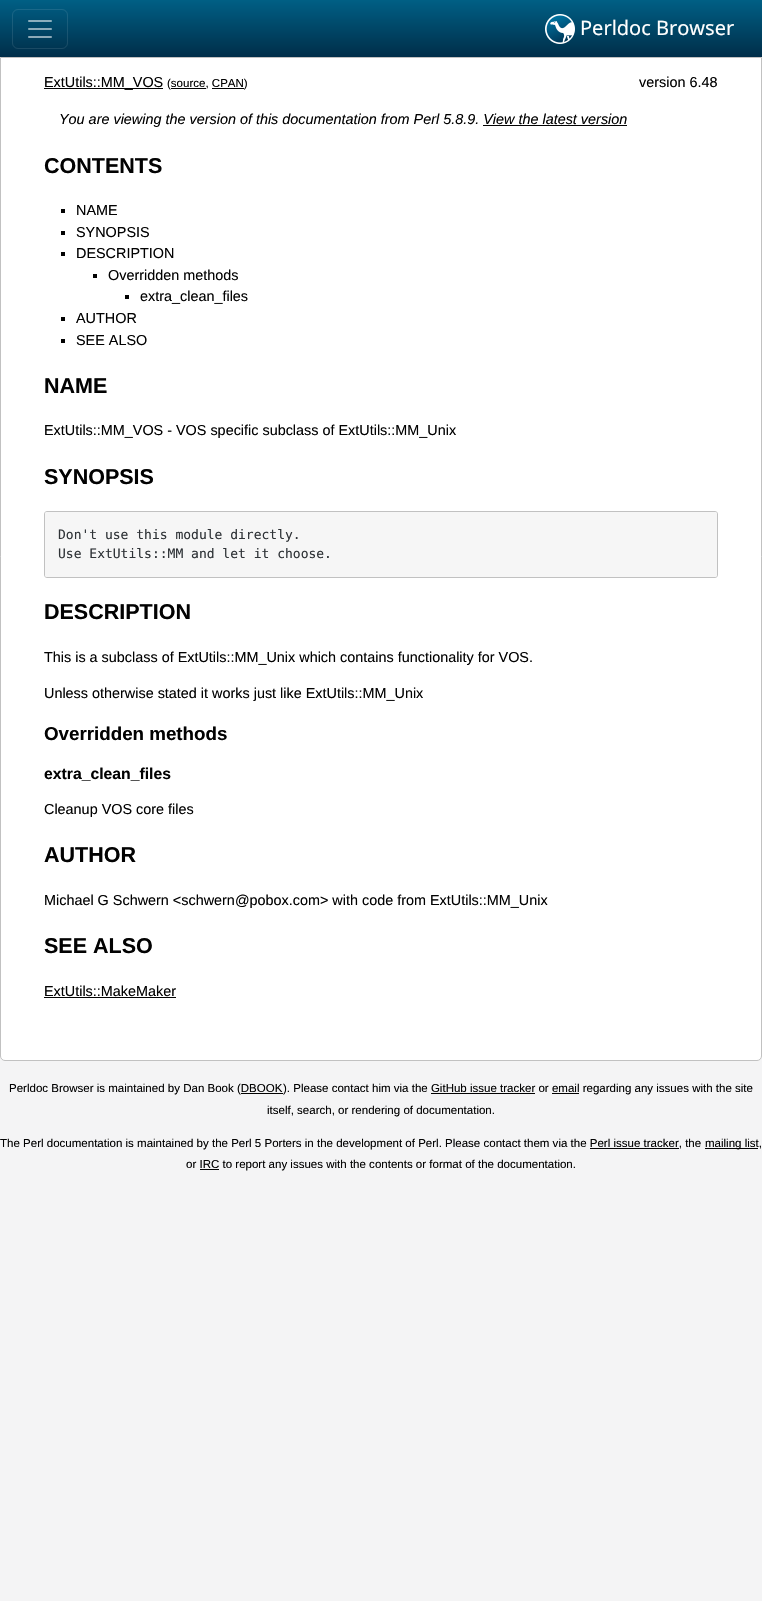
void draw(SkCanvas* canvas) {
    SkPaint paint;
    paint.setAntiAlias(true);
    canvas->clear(0xFFF4F4F5);
    {
        const SkColor colors[] = {0xFF005F85, 0xFF002E49};
        const float stops[] = {0, 1};
        const SkPoint ends[] = {{381, 0}, {381, 57}};
        paint.setShader(SkGradientShader::MakeLinear(ends, colors, stops, 2, SkTileMode::kClamp));
        paint.setAlpha(255);
    }
    canvas->drawRect(SkRect::MakeXYWH(0, 0, 762, 57), paint);
    paint.setStyle(SkPaint::kStroke_Style);
    paint.setStrokeWidth(1);
    paint.setShader(nullptr);
    paint.setColor(0x1AFFFFFF);
    canvas->drawRoundRect(SkRect::MakeXYWH(12.5f, 9.5f, 55, 39), 5.5f, 5.5f, paint);
    canvas->drawImageRect(SkImages::DeferredFromEncodedData(SkData::MakeFromFileName("img1.png")), SkRect::MakeXYWH(28, 20, 24, 18), SkSamplingOptions());
    canvas->drawImageRect(SkImages::DeferredFromEncodedData(SkData::MakeFromFileName("img2.png")), SkRect::MakeXYWH(545, 14, 30, 30), SkSamplingOptions());
    SkFont font1(fontMgr->matchFamilyStyle("Noto Sans", SkFontStyle::Normal()), 20);
    font1.setSubpixel(true);
    paint.setStyle(SkPaint::kFill_Style);
    paint.setColor(0xFFFFFFFF);
    canvas->drawString("Perldoc Browser", 580, 35, font1, paint);
    canvas->drawPath(SkPathBuilder().moveTo(0.5f, 57.5f).lineTo(761.5f, 57.5f).lineTo(761.5f, 1056).cubicTo(761.5f, 1058.5f, 759.5f, 1060.5f, 757, 1060.5f).lineTo(5, 1060.5f).cubicTo(2.5f, 1060.5f, 0.5f, 1058.5f, 0.5f, 1056).close().detach(), paint);
    paint.setStyle(SkPaint::kStroke_Style);
    paint.setColor(0xFFC1C1C1);
    canvas->drawPath(SkPathBuilder().moveTo(0.5f, 57.5f).lineTo(761.5f, 57.5f).lineTo(761.5f, 1056).cubicTo(761.5f, 1058.5f, 759.5f, 1060.5f, 757, 1060.5f).lineTo(5, 1060.5f).cubicTo(2.5f, 1060.5f, 0.5f, 1058.5f, 0.5f, 1056).close().detach(), paint);
    paint.setStyle(SkPaint::kFill_Style);
    paint.setColor(0xFF020202);
    canvas->drawRect(SkRect::MakeXYWH(44, 88, 119, 1), paint);
    SkFont font2(fontMgr->matchFamilyStyle("Liberation Sans", SkFontStyle::Normal()), 14.4f);
    font2.setSubpixel(true);
    canvas->drawString("ExtUtils::MM_VOS", 44, 87, font2, paint);
    SkFont font3(fontMgr->matchFamilyStyle("Liberation Sans", SkFontStyle::Normal()), 11.52f);
    font3.setSubpixel(true);
    canvas->drawString("(source, CPAN)", 167, 87, font3, paint);
    canvas->drawRect(SkRect::MakeXYWH(171, 88, 35, 1), paint);
    canvas->drawRect(SkRect::MakeXYWH(212, 88, 32, 1), paint);
    canvas->drawString("version 6.48", 639, 87, font2, paint);
    SkFont font4(fontMgr->matchFamilyStyle("Liberation Sans", SkFontStyle::Italic()), 14.4f);
    font4.setSubpixel(true);
    canvas->drawString("You are viewing the version of this documentation from Perl 5.8.9. View the latest version", 59, 124, font4, paint);
    canvas->drawRect(SkRect::MakeXYWH(483, 125, 144, 1), paint);
    SkFont font5(fontMgr->matchFamilyStyle("Liberation Sans", SkFontStyle::Bold()), 21.5f);
    font5.setSubpixel(true);
    canvas->drawString("CONTENTS", 44, 173, font5, paint);
    canvas->drawRect(SkRect::MakeXYWH(61, 209, 4, 4), paint);
    canvas->drawString("NAME", 76, 215, font2, paint);
    canvas->drawRect(SkRect::MakeXYWH(61, 231, 4, 4), paint);
    canvas->drawString("SYNOPSIS", 76, 237, font2, paint);
    canvas->drawRect(SkRect::MakeXYWH(61, 252, 4, 4), paint);
    canvas->drawString("DESCRIPTION", 76, 258, font2, paint);
    canvas->drawRect(SkRect::MakeXYWH(93, 274, 4, 4), paint);
    canvas->drawString("Overridden methods", 108, 280, font2, paint);
    canvas->drawRect(SkRect::MakeXYWH(125, 295, 4, 4), paint);
    canvas->drawString("extra_clean_files", 140, 301, font2, paint);
    canvas->drawRect(SkRect::MakeXYWH(61, 317, 4, 4), paint);
    canvas->drawString("AUTHOR", 76, 323, font2, paint);
    canvas->drawRect(SkRect::MakeXYWH(61, 339, 4, 4), paint);
    canvas->drawString("SEE ALSO", 76, 345, font2, paint);
    canvas->drawString("NAME", 44, 393, font5, paint);
    canvas->drawString("ExtUtils::MM_VOS - VOS specific subclass of ExtUtils::MM_Unix", 44, 435, font2, paint);
    canvas->drawString("SYNOPSIS", 44, 484, font5, paint);
    paint.setStyle(SkPaint::kStroke_Style);
    paint.setColor(0xFFC1C1C1);
    canvas->drawRoundRect(SkRect::MakeXYWH(44.5f, 511.5f, 673, 66), 2.5f, 2.5f, paint);
    paint.setStyle(SkPaint::kFill_Style);
    paint.setColor(0xFFF6F6F6);
    canvas->drawRoundRect(SkRect::MakeXYWH(45, 512, 672, 65), 2, 2, paint);
    SkFont font6(fontMgr->matchFamilyStyle("DejaVu Sans Mono", SkFontStyle::Normal()), 13);
    font6.setSubpixel(true);
    paint.setColor(0xFF2F3337);
    canvas->drawString("Don't use this module directly.", 58, 539, font6, paint);
    canvas->drawString("Use ExtUtils::MM and let it choose.", 58, 558, font6, paint);
    paint.setColor(0xFF020202);
    canvas->drawString("DESCRIPTION", 44, 619, font5, paint);
    canvas->drawString("This is a subclass of ExtUtils::MM_Unix which contains functionality for VOS.", 44, 662, font2, paint);
    canvas->drawString("Unless otherwise stated it works just like ExtUtils::MM_Unix", 44, 698, font2, paint);
    SkFont font7(fontMgr->matchFamilyStyle("Liberation Sans", SkFontStyle::Bold()), 18.75f);
    font7.setSubpixel(true);
    canvas->drawString("Overridden methods", 44, 740, font7, paint);
    SkFont font8(fontMgr->matchFamilyStyle("Liberation Sans", SkFontStyle::Bold()), 15.75f);
    font8.setSubpixel(true);
    canvas->drawString("extra_clean_files", 44, 779, font8, paint);
    canvas->drawString("Cleanup VOS core files", 44, 814, font2, paint);
    canvas->drawString("AUTHOR", 44, 862, font5, paint);
    canvas->drawString("Michael G Schwern <schwern@pobox.com> with code from ExtUtils::MM_Unix", 44, 905, font2, paint);
    canvas->drawString("SEE ALSO", 44, 953, font5, paint);
    canvas->drawString("ExtUtils::MakeMaker", 44, 996, font2, paint);
    canvas->drawRect(SkRect::MakeXYWH(44, 997, 132, 1), paint);
    canvas->drawString("Perldoc Browser is maintained by Dan Book (DBOOK", 9, 1092, font3, paint);
    canvas->drawRect(SkRect::MakeXYWH(241, 1093, 42, 1), paint);
    canvas->drawString("). Please contact him via the GitHub issue tracker or email regarding any issues with the site", 283, 1092, font3, paint);
    canvas->drawRect(SkRect::MakeXYWH(431, 1093, 104, 1), paint);
    canvas->drawRect(SkRect::MakeXYWH(552, 1093, 27, 1), paint);
    canvas->drawString("itself, search, or rendering of documentation.", 267, 1114, font3, paint);
    canvas->drawString("The Perl documentation is maintained by the Perl 5 Porters in the development of Perl. Please contact them via the Perl issue tracker, the", 0, 1147, font3, paint);
    canvas->drawRect(SkRect::MakeXYWH(705, 1148, 53, 1), paint);
    canvas->drawString("mailing list,", 705, 1147, font3, paint);
    canvas->drawRect(SkRect::MakeXYWH(590, 1148, 89, 1), paint);
    canvas->drawString("or IRC to report any issues with the contents or format of the documentation.", 186, 1168, font3, paint);
    canvas->drawRect(SkRect::MakeXYWH(200, 1169, 19, 1), paint);
}
